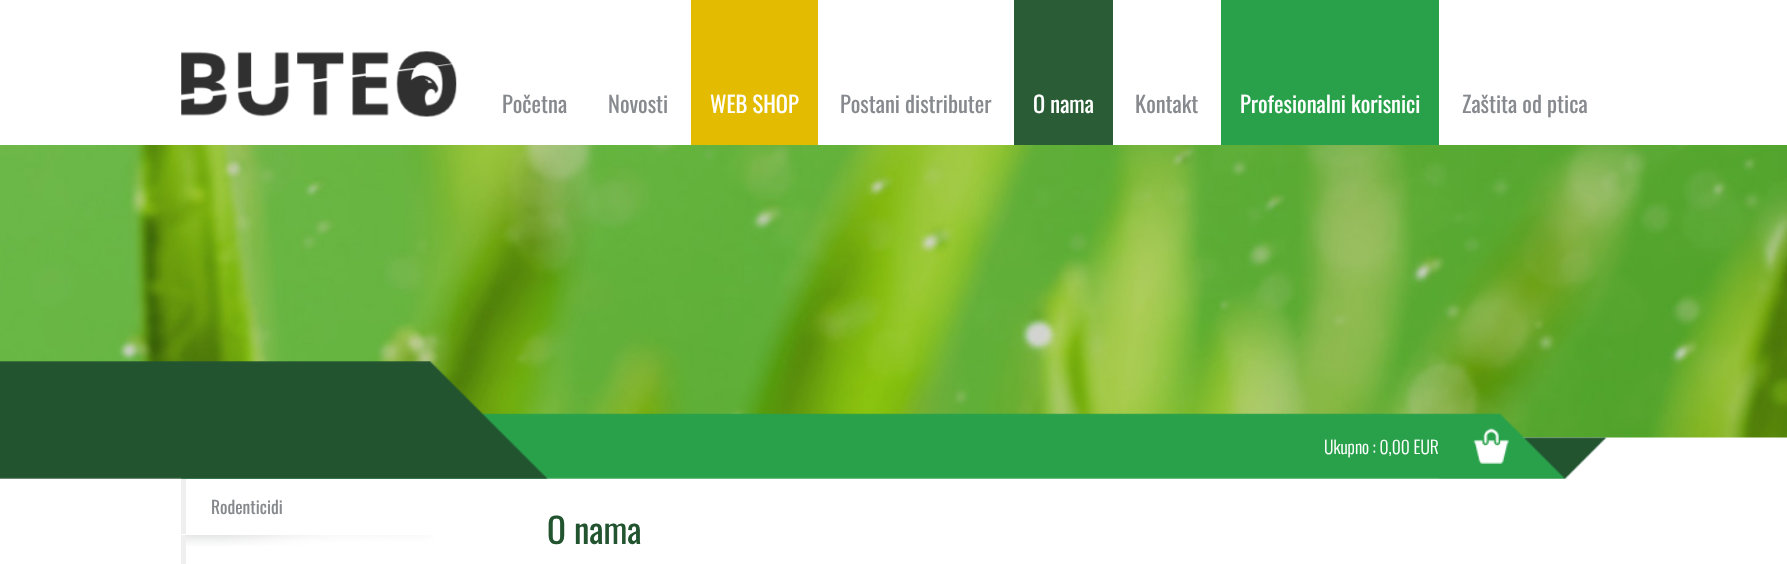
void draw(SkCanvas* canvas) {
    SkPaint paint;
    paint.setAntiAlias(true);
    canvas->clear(0xFFFFFFFF);
    canvas->drawImageRect(SkImages::DeferredFromEncodedData(SkData::MakeFromFileName("img1.png")), SkRect::MakeXYWH(181, 51, 276, 66), SkSamplingOptions());
    SkFont font1(fontMgr->matchFamilyStyle("Oswald", SkFontStyle::Normal()), 22.5f);
    font1.setSubpixel(true);
    paint.setColor(0xFF86898D);
    canvas->drawString("Početna", 502, 113, font1, paint);
    canvas->drawString("Novosti", 608, 113, font1, paint);
    paint.setColor(0xFFE3BB00);
    canvas->drawRect(SkRect::MakeXYWH(691, 0, 127, 145), paint);
    paint.setColor(0xFFFFFFFF);
    canvas->drawString("WEB SHOP", 710, 113, font1, paint);
    paint.setColor(0xFF86898D);
    canvas->drawString("Postani distributer", 840, 113, font1, paint);
    paint.setColor(0xFF2A5D35);
    canvas->drawRect(SkRect::MakeXYWH(1014, 0, 99, 145), paint);
    paint.setColor(0xFFFFFFFF);
    canvas->drawString("O nama", 1033, 113, font1, paint);
    paint.setColor(0xFF86898D);
    canvas->drawString("Kontakt", 1135, 113, font1, paint);
    paint.setColor(0xFF28A14A);
    canvas->drawRect(SkRect::MakeXYWH(1221, 0, 218, 145), paint);
    paint.setColor(0xFFFFFFFF);
    canvas->drawString("Profesionalni korisnici", 1240, 113, font1, paint);
    paint.setColor(0xFF86898D);
    canvas->drawString("Zaštita od ptica", 1462, 113, font1, paint);
    canvas->drawImageRect(SkImages::DeferredFromEncodedData(SkData::MakeFromFileName("img2.png")), SkRect::MakeXYWH(0, 145, 1787, 293), SkSamplingOptions());
    canvas->drawImageRect(SkImages::DeferredFromEncodedData(SkData::MakeFromFileName("img4.png")), SkRect::MakeXYWH(181, 413, 1426, 66), SkSamplingOptions());
    canvas->drawImageRect(SkImages::DeferredFromEncodedData(SkData::MakeFromFileName("img3.png")), SkRect::MakeXYWH(0, 361, 548, 118), SkSamplingOptions());
    SkFont font2(fontMgr->matchFamilyStyle("Oswald", SkFontStyle(300, SkFontStyle::kNormal_Width, SkFontStyle::kUpright_Slant)), 17.5f);
    font2.setSubpixel(true);
    paint.setColor(0xFFFFFFFF);
    canvas->drawString("Ukupno : 0,00 EUR", 1324, 454, font2, paint);
    canvas->drawImageRect(SkImages::DeferredFromEncodedData(SkData::MakeFromFileName("img5.png")), SkRect::MakeXYWH(1473, 428, 36, 36), SkSamplingOptions());
    paint.setColor(0xFFEEEFEE);
    canvas->drawRect(SkRect::MakeXYWH(181, 479, 5, 55), paint);
    SkFont font3(fontMgr->matchFamilyStyle("Oswald", SkFontStyle::Normal()), 17.5f);
    font3.setSubpixel(true);
    paint.setColor(0xFF86898D);
    canvas->drawString("Rodenticidi", 211, 514, font3, paint);
    canvas->drawImageRect(SkImages::DeferredFromEncodedData(SkData::MakeFromFileName("img6.png")), SkRect::MakeXYWH(186, 535, 247, 11), SkSamplingOptions());
    paint.setColor(0xFFEEEFEE);
    canvas->drawRect(SkRect::MakeXYWH(181, 535, 5, 29), paint);
    SkFont font4(fontMgr->matchFamilyStyle("Oswald", SkFontStyle::Normal()), 35);
    font4.setSubpixel(true);
    paint.setColor(0xFF225430);
    canvas->drawString("O nama", 547, 544, font4, paint);
}
